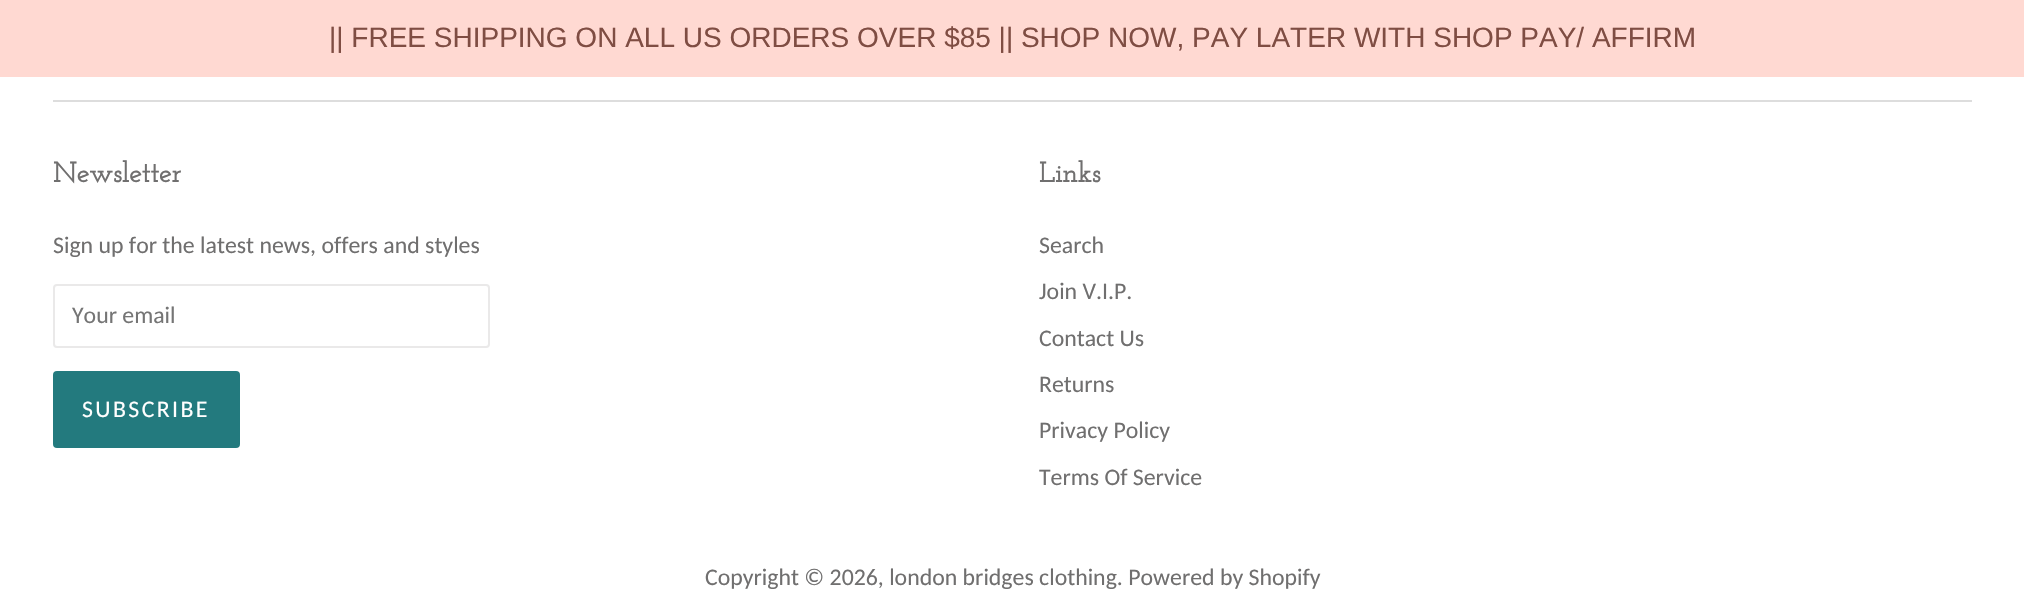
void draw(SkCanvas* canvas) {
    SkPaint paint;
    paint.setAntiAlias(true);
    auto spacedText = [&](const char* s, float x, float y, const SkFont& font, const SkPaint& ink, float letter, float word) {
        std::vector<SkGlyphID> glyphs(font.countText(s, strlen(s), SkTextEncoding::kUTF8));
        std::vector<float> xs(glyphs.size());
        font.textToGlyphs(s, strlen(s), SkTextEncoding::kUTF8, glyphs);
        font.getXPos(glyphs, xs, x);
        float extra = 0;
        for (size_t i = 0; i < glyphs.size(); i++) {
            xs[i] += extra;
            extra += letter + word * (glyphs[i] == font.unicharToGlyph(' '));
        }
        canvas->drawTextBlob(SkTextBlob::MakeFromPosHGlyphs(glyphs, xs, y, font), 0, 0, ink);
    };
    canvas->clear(0xFFFFFFFF);
    paint.setColor(0xFFFFD9D2);
    canvas->drawRect(SkRect::MakeXYWH(0, 0, 2024, 77), paint);
    SkFont font1(fontMgr->matchFamilyStyle("Liberation Sans", SkFontStyle::Normal()), 28);
    font1.setSubpixel(true);
    paint.setColor(0xFF7F4D43);
    canvas->drawString("|| FREE SHIPPING ON ALL US ORDERS OVER $85 || SHOP NOW, PAY LATER WITH SHOP PAY/ AFFIRM", 329, 47, font1, paint);
    paint.setColor(0xFFDDDDDD);
    canvas->drawRect(SkRect::MakeXYWH(53, 100, 1919, 2), paint);
    SkFont font2(fontMgr->matchFamilyStyle("Josefin Slab", SkFontStyle::Bold()), 28);
    font2.setSubpixel(true);
    paint.setColor(0xFF706F6F);
    canvas->drawString("Newsletter", 53, 182, font2, paint);
    SkFont font3(fontMgr->matchFamilyStyle("Carlito", SkFontStyle::Normal()), 23.8f);
    font3.setSubpixel(true);
    canvas->drawString("Sign up for the latest news, offers and styles", 53, 253, font3, paint);
    paint.setStyle(SkPaint::kStroke_Style);
    paint.setStrokeWidth(2);
    paint.setColor(0xFFEAE9E9);
    canvas->drawRoundRect(SkRect::MakeXYWH(54, 285, 435, 62), 3, 3, paint);
    paint.setStyle(SkPaint::kFill_Style);
    paint.setColor(0xFF757575);
    canvas->drawString("Your email", 72, 323, font3, paint);
    paint.setColor(0xFF237A7E);
    canvas->drawRoundRect(SkRect::MakeXYWH(53, 371, 187, 77), 4, 4, paint);
    paint.setColor(0xFFFFFFFF);
    spacedText("SUBSCRIBE", 82, 417, font3, paint, 2.4f, 0);
    paint.setColor(0xFF706F6F);
    canvas->drawString("Links", 1039, 182, font2, paint);
    canvas->drawString("Search", 1039, 253, font3, paint);
    canvas->drawString("Join V.I.P.", 1039, 299, font3, paint);
    canvas->drawString("Contact Us", 1039, 346, font3, paint);
    canvas->drawString("Returns", 1039, 392, font3, paint);
    canvas->drawString("Privacy Policy", 1039, 438, font3, paint);
    canvas->drawString("Terms Of Service", 1039, 485, font3, paint);
    canvas->drawString("Copyright © 2026, london bridges clothing. Powered by Shopify", 705, 585, font3, paint);
}
